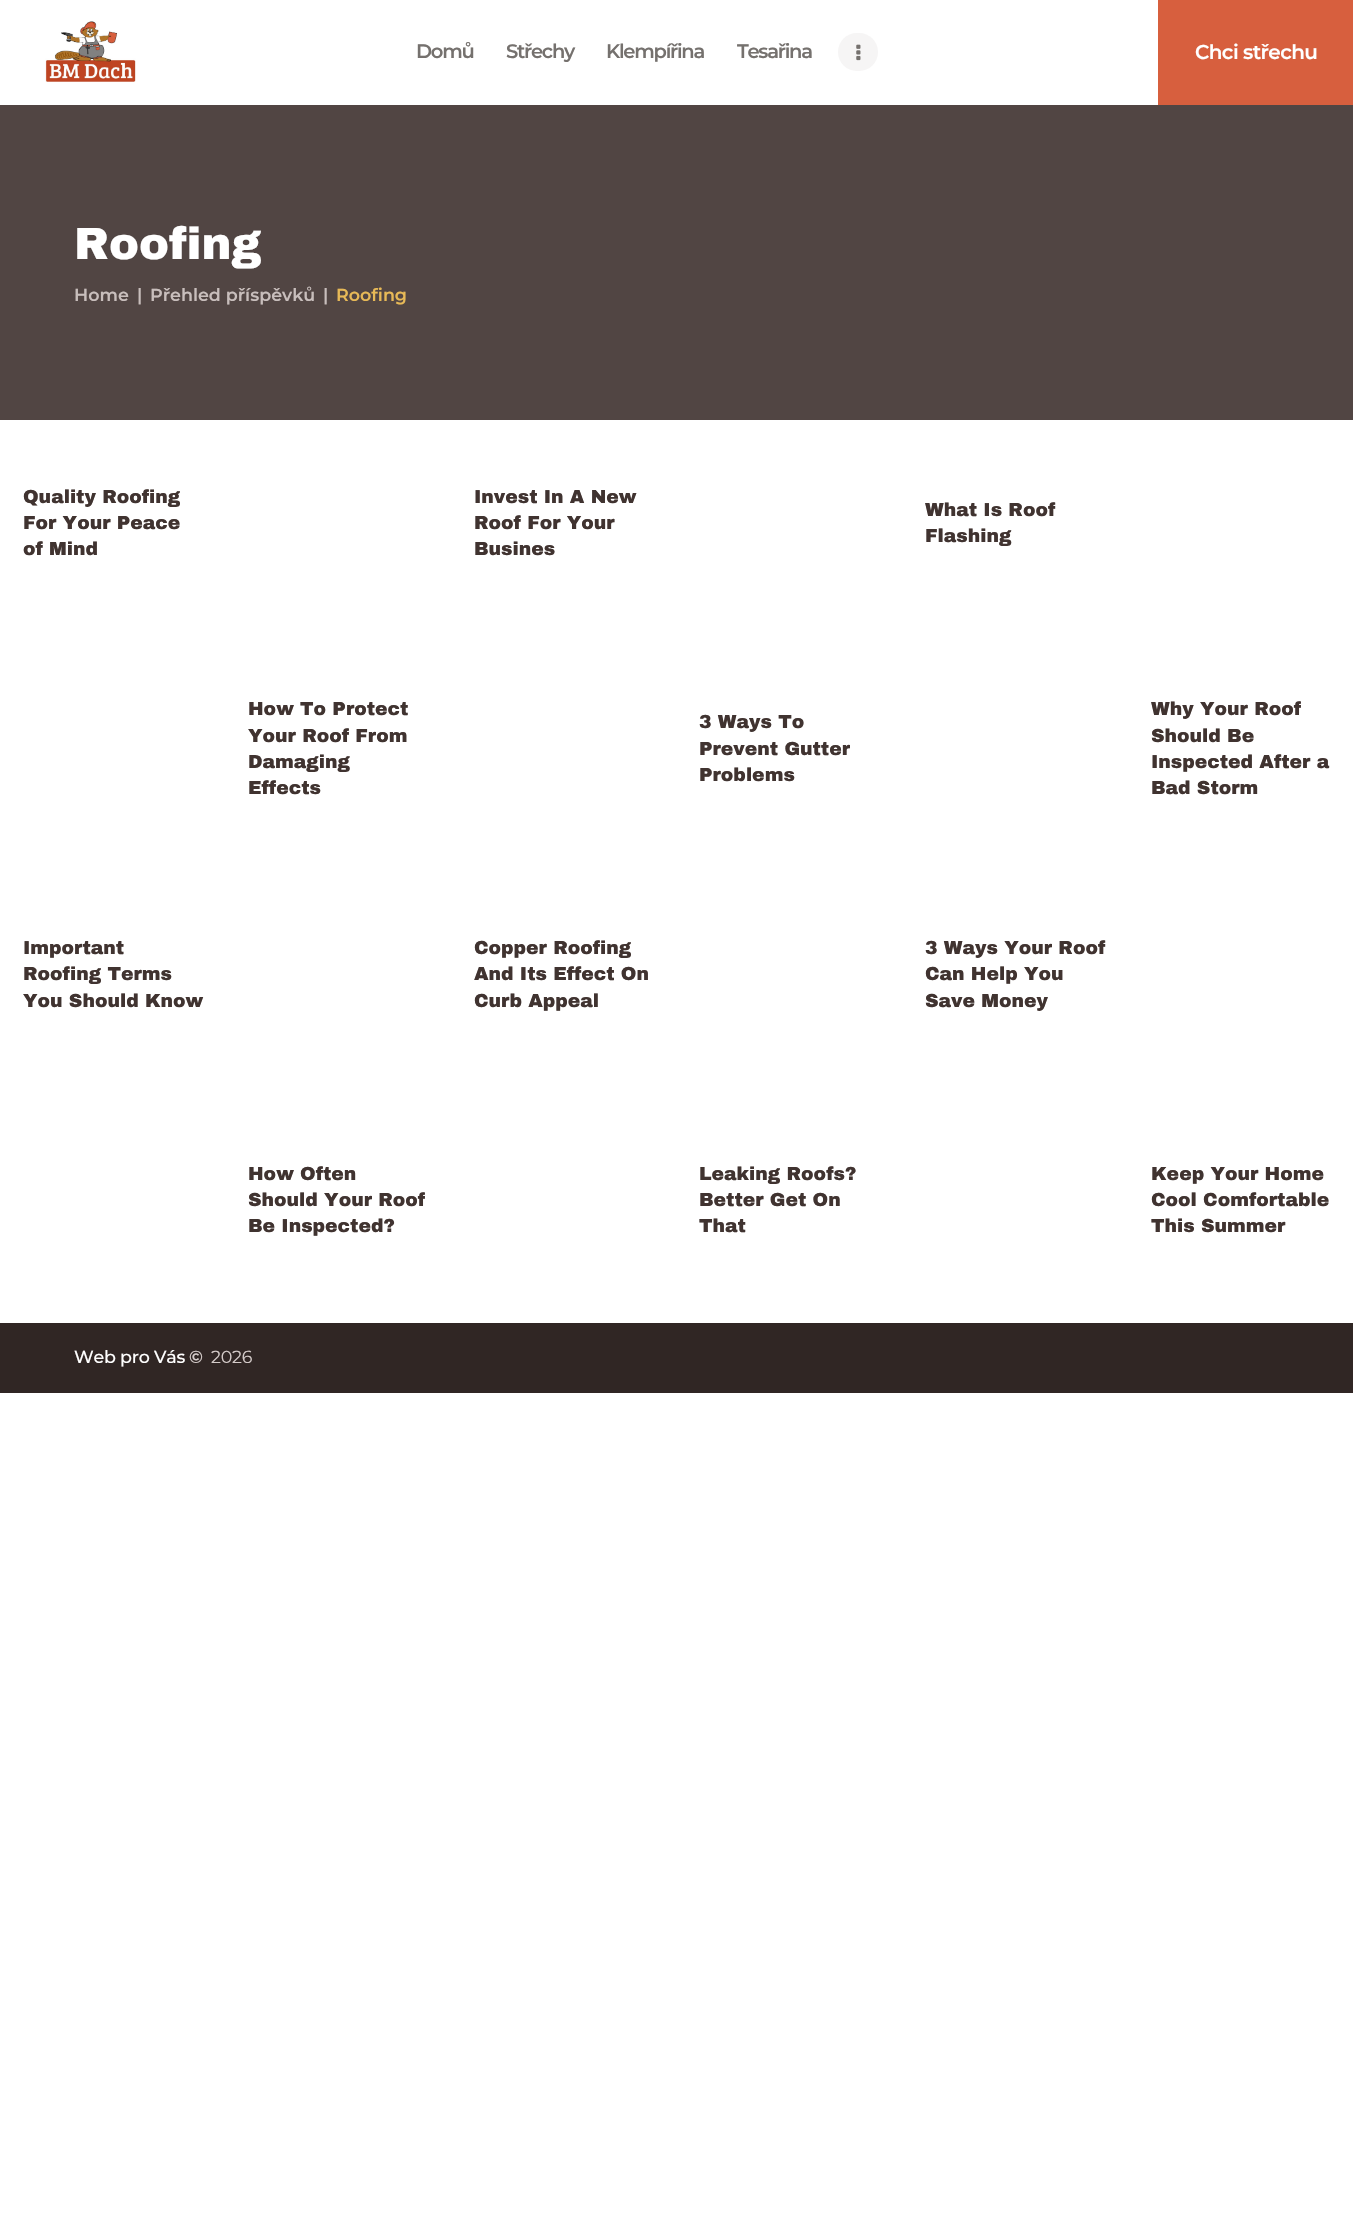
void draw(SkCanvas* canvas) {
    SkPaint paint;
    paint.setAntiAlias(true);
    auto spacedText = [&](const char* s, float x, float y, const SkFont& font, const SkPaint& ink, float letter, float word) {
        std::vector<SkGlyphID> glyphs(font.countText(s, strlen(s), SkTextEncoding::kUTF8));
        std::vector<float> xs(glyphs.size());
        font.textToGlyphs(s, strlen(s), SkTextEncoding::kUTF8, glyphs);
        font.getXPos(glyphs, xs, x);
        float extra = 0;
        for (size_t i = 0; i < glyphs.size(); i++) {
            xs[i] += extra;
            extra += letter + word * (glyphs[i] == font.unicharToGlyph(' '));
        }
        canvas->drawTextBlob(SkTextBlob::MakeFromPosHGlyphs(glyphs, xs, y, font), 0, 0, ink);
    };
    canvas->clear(0xFFFFFFFF);
    canvas->drawImageRect(SkImages::DeferredFromEncodedData(SkData::MakeFromFileName("img1.png")), SkRect::MakeXYWH(45, 21, 91, 61), SkSamplingOptions());
    SkFont font1(fontMgr->matchFamilyStyle("Montserrat", SkFontStyle(600, SkFontStyle::kNormal_Width, SkFontStyle::kUpright_Slant)), 19.5f);
    font1.setSubpixel(true);
    paint.setColor(0xFF75716E);
    spacedText("Domů", 416, 58, font1, paint, -1.25f, 0);
    spacedText("Střechy", 506, 58, font1, paint, -1.25f, 0);
    spacedText("Klempířina", 606, 58, font1, paint, -1.25f, 0);
    spacedText("Tesařina", 737, 58, font1, paint, -1.25f, 0);
    paint.setColor(0xFFF6F5F5);
    canvas->drawRoundRect(SkRect::MakeXYWH(838, 33, 40, 38), 19, 19, paint);
    canvas->drawImageRect(SkImages::DeferredFromEncodedData(SkData::MakeFromFileName("img2.png")), SkRect::MakeXYWH(856, 44, 5, 17), SkSamplingOptions());
    paint.setColor(0xFFD75F3E);
    canvas->drawRect(SkRect::MakeXYWH(1158, 0, 195, 105), paint);
    SkFont font2(fontMgr->matchFamilyStyle("Montserrat", SkFontStyle(600, SkFontStyle::kNormal_Width, SkFontStyle::kUpright_Slant)), 20);
    font2.setSubpixel(true);
    paint.setColor(0xFFFFFFFF);
    spacedText("Chci střechu", 1195, 59, font2, paint, -0.6f, 0);
    paint.setColor(0xFF514543);
    canvas->drawRect(SkRect::MakeXYWH(0, 105, 1353, 315), paint);
    SkFont font3(fontMgr->matchFamilyStyle("Archivo Black", SkFontStyle(900, SkFontStyle::kNormal_Width, SkFontStyle::kUpright_Slant)), 45);
    font3.setSubpixel(true);
    paint.setColor(0xFFFFFFFF);
    canvas->drawString("Roofing", 74, 259, font3, paint);
    SkFont font4(fontMgr->matchFamilyStyle("Montserrat", SkFontStyle(600, SkFontStyle::kNormal_Width, SkFontStyle::kUpright_Slant)), 17.5f);
    font4.setSubpixel(true);
    paint.setColor(0xFFC8BEBC);
    canvas->drawString("Home", 74, 301, font4, paint);
    canvas->drawString("|", 137, 301, font4, paint);
    canvas->drawString("Přehled příspěvků", 150, 301, font4, paint);
    canvas->drawString("|", 323, 301, font4, paint);
    paint.setColor(0xFFE7B957);
    canvas->drawString("Roofing", 336, 301, font4, paint);
    SkFont font5(fontMgr->matchFamilyStyle("Archivo Black", SkFontStyle(900, SkFontStyle::kNormal_Width, SkFontStyle::kUpright_Slant)), 18.75f);
    font5.setSubpixel(true);
    paint.setColor(0xFF403330);
    canvas->drawString("Quality Roofing", 23, 503, font5, paint);
    canvas->drawString("For Your Peace", 23, 529, font5, paint);
    canvas->drawString("of Mind", 23, 555, font5, paint);
    canvas->drawString("Invest In A New", 474, 503, font5, paint);
    canvas->drawString("Roof For Your", 474, 529, font5, paint);
    canvas->drawString("Busines", 474, 555, font5, paint);
    canvas->drawString("What Is Roof", 925, 516, font5, paint);
    canvas->drawString("Flashing", 925, 542, font5, paint);
    canvas->drawString("How To Protect", 248, 715, font5, paint);
    canvas->drawString("Your Roof From", 248, 742, font5, paint);
    canvas->drawString("Damaging", 248, 768, font5, paint);
    canvas->drawString("Effects", 248, 794, font5, paint);
    canvas->drawString("3 Ways To", 699, 728, font5, paint);
    canvas->drawString("Prevent Gutter", 699, 755, font5, paint);
    canvas->drawString("Problems", 699, 781, font5, paint);
    canvas->drawString("Why Your Roof", 1151, 715, font5, paint);
    canvas->drawString("Should Be", 1151, 742, font5, paint);
    canvas->drawString("Inspected After a", 1151, 768, font5, paint);
    canvas->drawString("Bad Storm", 1151, 794, font5, paint);
    canvas->drawString("Important", 23, 954, font5, paint);
    canvas->drawString("Roofing Terms", 23, 980, font5, paint);
    canvas->drawString("You Should Know", 23, 1007, font5, paint);
    canvas->drawString("Copper Roofing", 474, 954, font5, paint);
    canvas->drawString("And Its Effect On", 474, 980, font5, paint);
    canvas->drawString("Curb Appeal", 474, 1007, font5, paint);
    canvas->drawString("3 Ways Your Roof", 925, 954, font5, paint);
    canvas->drawString("Can Help You", 925, 980, font5, paint);
    canvas->drawString("Save Money", 925, 1007, font5, paint);
    canvas->drawString("How Often", 248, 1180, font5, paint);
    canvas->drawString("Should Your Roof", 248, 1206, font5, paint);
    canvas->drawString("Be Inspected?", 248, 1232, font5, paint);
    canvas->drawString("Leaking Roofs?", 699, 1180, font5, paint);
    canvas->drawString("Better Get On", 699, 1206, font5, paint);
    canvas->drawString("That", 699, 1232, font5, paint);
    canvas->drawString("Keep Your Home", 1151, 1180, font5, paint);
    canvas->drawString("Cool Comfortable", 1151, 1206, font5, paint);
    canvas->drawString("This Summer", 1151, 1232, font5, paint);
    paint.setColor(0xFF302624);
    canvas->drawRect(SkRect::MakeXYWH(0, 1323, 1353, 70), paint);
    SkFont font6(fontMgr->matchFamilyStyle("Montserrat", SkFontStyle(500, SkFontStyle::kNormal_Width, SkFontStyle::kUpright_Slant)), 17.5f);
    font6.setSubpixel(true);
    paint.setColor(0xFFFFFFFF);
    spacedText("Web pro Vás", 74, 1363, font6, paint, -0.25f, 0);
    paint.setColor(0xFFD4CBC9);
    spacedText("©", 189, 1363, font4, paint, -0.25f, 0);
    SkFont font7(fontMgr->matchFamilyStyle("Montserrat", SkFontStyle::Normal()), 17.5f);
    font7.setSubpixel(true);
    spacedText("2026", 211, 1363, font7, paint, -0.25f, 0);
}
